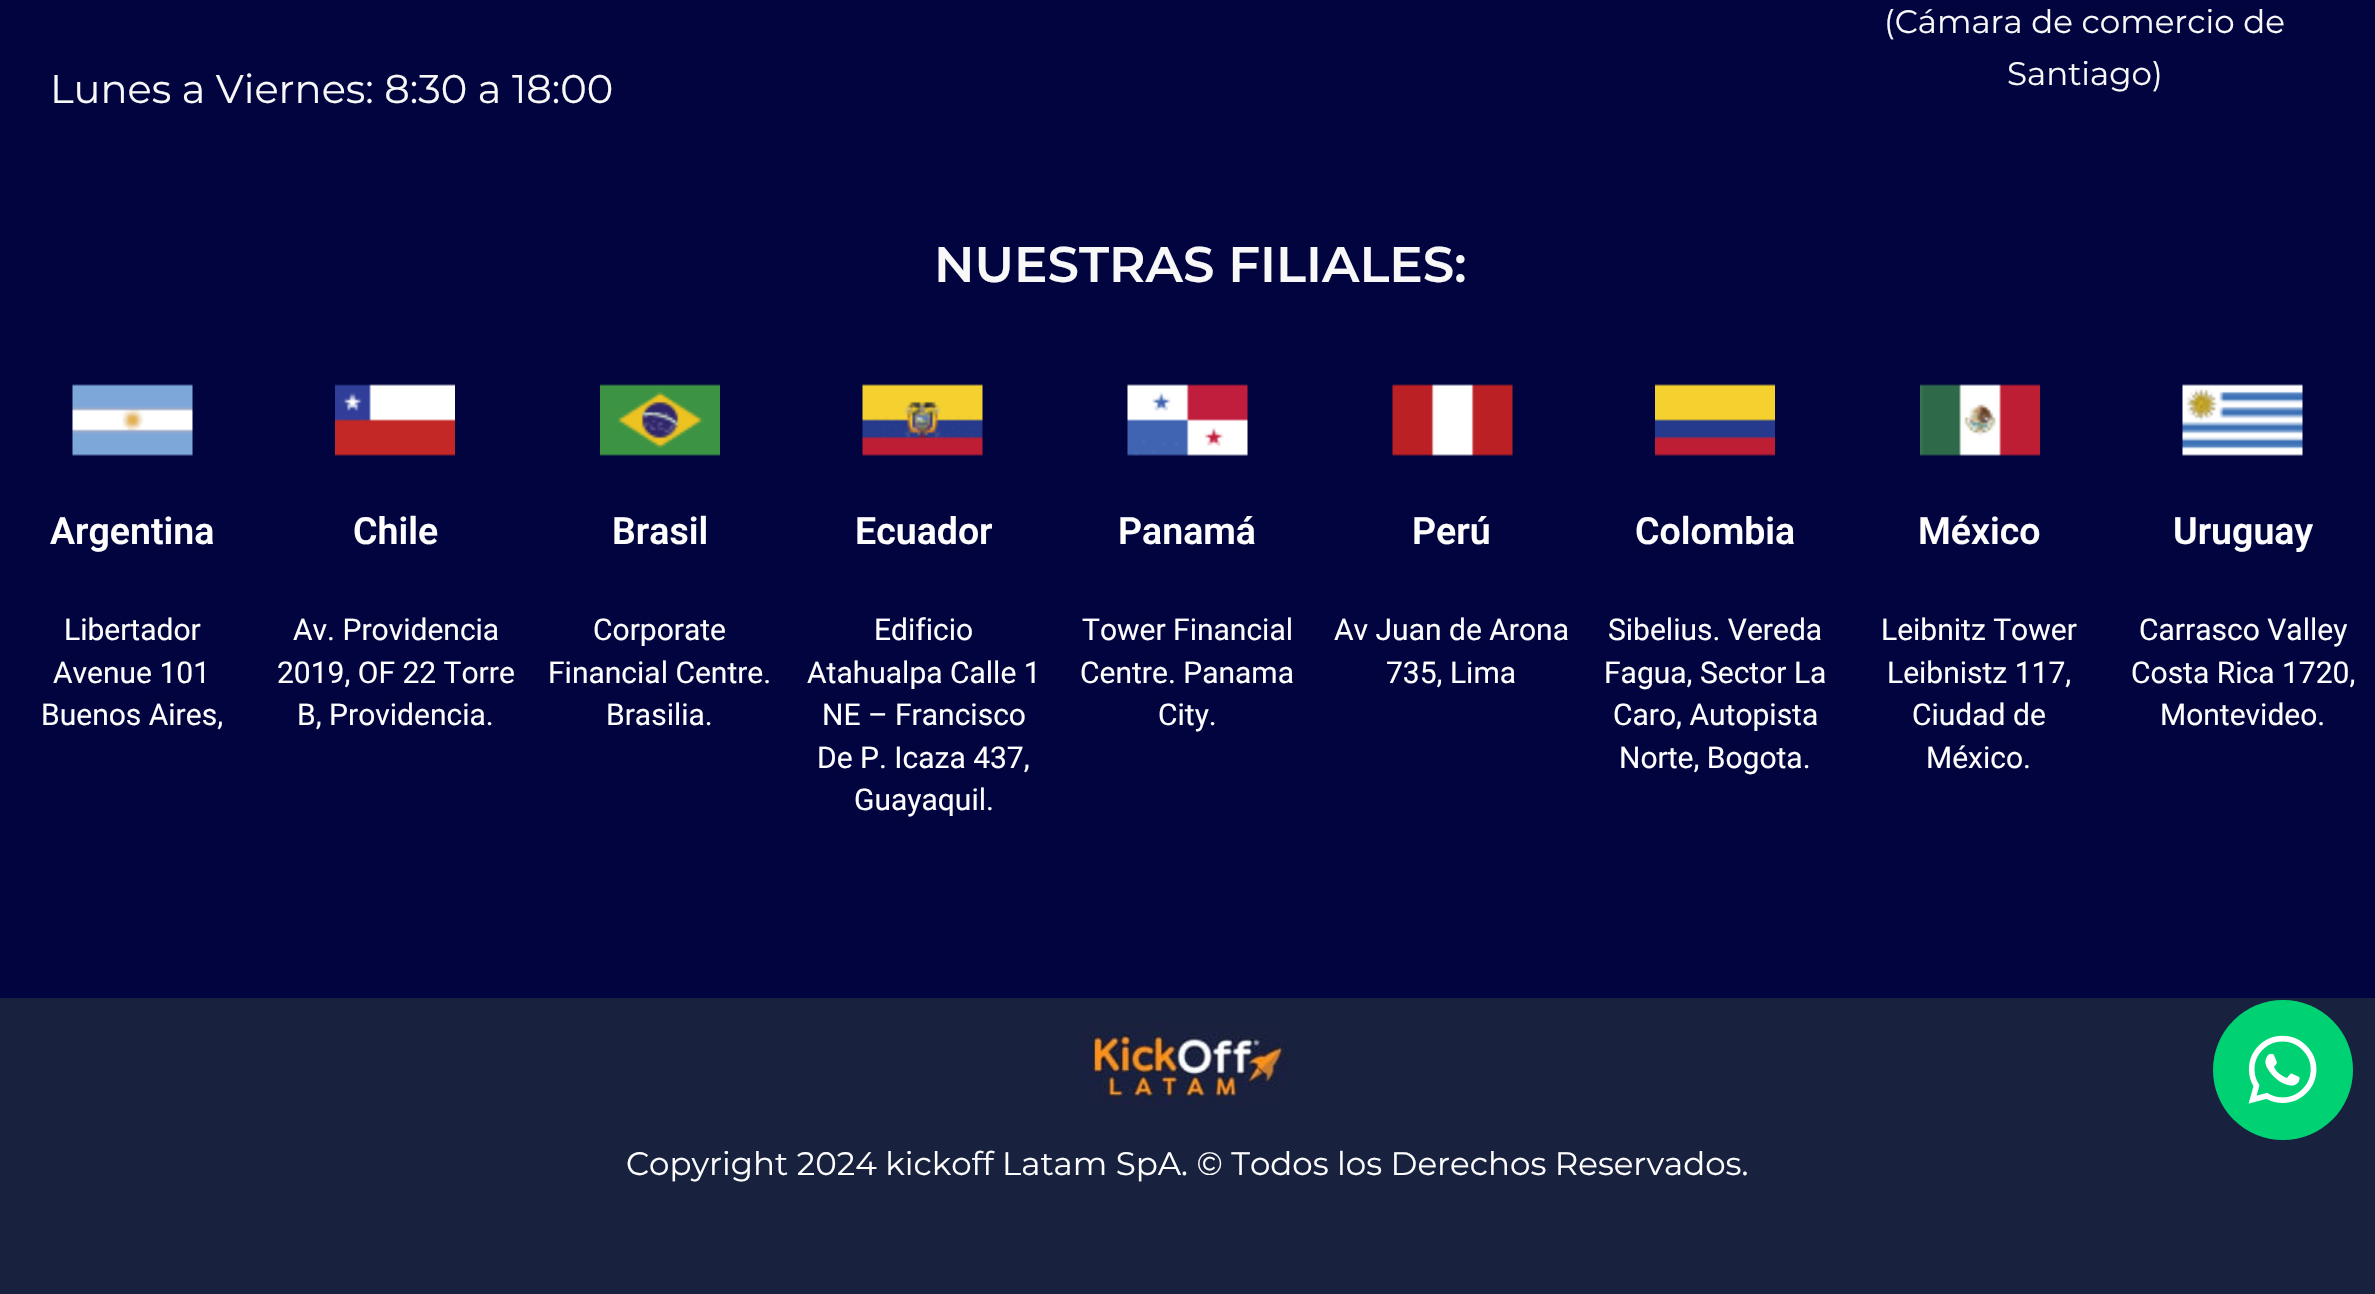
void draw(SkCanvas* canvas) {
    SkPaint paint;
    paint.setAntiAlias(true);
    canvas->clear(0xFF01043E);
    SkFont font1(fontMgr->matchFamilyStyle("Montserrat", SkFontStyle::Normal()), 40);
    font1.setSubpixel(true);
    paint.setColor(0xFFF8F8F8);
    canvas->drawString("Lunes a Viernes: 8:30 a 18:00", 50, 103, font1, paint);
    SkFont font2(fontMgr->matchFamilyStyle("Montserrat", SkFontStyle::Normal()), 32.5f);
    font2.setSubpixel(true);
    canvas->drawString("(Cámara de comercio de", 1884, 33, font2, paint);
    canvas->drawString("Santiago)", 2007, 85, font2, paint);
    SkFont font3(fontMgr->matchFamilyStyle("Montserrat", SkFontStyle(600, SkFontStyle::kNormal_Width, SkFontStyle::kUpright_Slant)), 50);
    font3.setSubpixel(true);
    canvas->drawString("NUESTRAS FILIALES:", 934, 282, font3, paint);
    canvas->drawImageRect(SkImages::DeferredFromEncodedData(SkData::MakeFromFileName("img1.png")), SkRect::MakeXYWH(72, 384, 121, 72), SkSamplingOptions());
    SkFont font4(fontMgr->matchFamilyStyle("Roboto", SkFontStyle(600, SkFontStyle::kNormal_Width, SkFontStyle::kUpright_Slant)), 37.5f);
    font4.setSubpixel(true);
    paint.setColor(0xFFFEFEFE);
    canvas->drawString("Argentina", 50, 544, font4, paint);
    SkFont font5(fontMgr->matchFamilyStyle("Roboto", SkFontStyle::Normal()), 30);
    font5.setSubpixel(true);
    canvas->drawString("Libertador", 64, 640, font5, paint);
    canvas->drawString("Avenue 101", 53, 683, font5, paint);
    canvas->drawString("Buenos Aires,", 41, 725, font5, paint);
    canvas->drawImageRect(SkImages::DeferredFromEncodedData(SkData::MakeFromFileName("img2.png")), SkRect::MakeXYWH(335, 384, 120, 72), SkSamplingOptions());
    canvas->drawString("Chile", 353, 544, font4, paint);
    canvas->drawString("Av. Providencia", 293, 640, font5, paint);
    canvas->drawString("2019, OF 22 Torre", 277, 683, font5, paint);
    canvas->drawString("B, Providencia.", 297, 725, font5, paint);
    canvas->drawImageRect(SkImages::DeferredFromEncodedData(SkData::MakeFromFileName("img3.png")), SkRect::MakeXYWH(600, 384, 120, 72), SkSamplingOptions());
    canvas->drawString("Brasil", 612, 544, font4, paint);
    canvas->drawString("Corporate", 593, 640, font5, paint);
    canvas->drawString("Financial Centre.", 548, 683, font5, paint);
    canvas->drawString("Brasilia.", 606, 725, font5, paint);
    canvas->drawImageRect(SkImages::DeferredFromEncodedData(SkData::MakeFromFileName("img4.png")), SkRect::MakeXYWH(862, 384, 121, 72), SkSamplingOptions());
    canvas->drawString("Ecuador", 855, 544, font4, paint);
    canvas->drawString("Edificio", 874, 640, font5, paint);
    canvas->drawString("Atahualpa Calle 1", 807, 683, font5, paint);
    canvas->drawString("NE – Francisco", 822, 725, font5, paint);
    canvas->drawString("De P. Icaza 437,", 817, 768, font5, paint);
    canvas->drawString("Guayaquil.", 854, 810, font5, paint);
    canvas->drawImageRect(SkImages::DeferredFromEncodedData(SkData::MakeFromFileName("img5.png")), SkRect::MakeXYWH(1127, 384, 121, 72), SkSamplingOptions());
    canvas->drawString("Panamá", 1118, 544, font4, paint);
    canvas->drawString("Tower Financial", 1082, 640, font5, paint);
    canvas->drawString("Centre. Panama", 1080, 683, font5, paint);
    canvas->drawString("City.", 1158, 725, font5, paint);
    canvas->drawImageRect(SkImages::DeferredFromEncodedData(SkData::MakeFromFileName("img6.png")), SkRect::MakeXYWH(1392, 384, 121, 72), SkSamplingOptions());
    canvas->drawString("Perú", 1412, 544, font4, paint);
    canvas->drawString("Av Juan de Arona", 1334, 640, font5, paint);
    canvas->drawString("735, Lima", 1386, 683, font5, paint);
    canvas->drawImageRect(SkImages::DeferredFromEncodedData(SkData::MakeFromFileName("img7.png")), SkRect::MakeXYWH(1655, 384, 120, 72), SkSamplingOptions());
    canvas->drawString("Colombia", 1635, 544, font4, paint);
    canvas->drawString("Sibelius. Vereda", 1608, 640, font5, paint);
    canvas->drawString("Fagua, Sector La", 1604, 683, font5, paint);
    canvas->drawString("Caro, Autopista", 1613, 725, font5, paint);
    canvas->drawString("Norte, Bogota.", 1619, 768, font5, paint);
    canvas->drawImageRect(SkImages::DeferredFromEncodedData(SkData::MakeFromFileName("img8.png")), SkRect::MakeXYWH(1920, 384, 120, 72), SkSamplingOptions());
    canvas->drawString("México", 1918, 544, font4, paint);
    canvas->drawString("Leibnitz Tower", 1881, 640, font5, paint);
    canvas->drawString("Leibnistz 117,", 1887, 683, font5, paint);
    canvas->drawString("Ciudad de", 1912, 725, font5, paint);
    canvas->drawString("México.", 1926, 768, font5, paint);
    canvas->drawImageRect(SkImages::DeferredFromEncodedData(SkData::MakeFromFileName("img9.png")), SkRect::MakeXYWH(2182, 384, 121, 72), SkSamplingOptions());
    canvas->drawString("Uruguay", 2173, 544, font4, paint);
    canvas->drawString("Carrasco Valley", 2139, 640, font5, paint);
    canvas->drawString("Costa Rica 1720,", 2131, 683, font5, paint);
    canvas->drawString("Montevideo.", 2160, 725, font5, paint);
    paint.setColor(0xFF18223F);
    canvas->drawRect(SkRect::MakeXYWH(0, 998, 2375, 296), paint);
    canvas->drawImageRect(SkImages::DeferredFromEncodedData(SkData::MakeFromFileName("img10.png")), SkRect::MakeXYWH(1080, 1022, 209, 86), SkSamplingOptions());
    paint.setColor(0xFFFEFEFE);
    canvas->drawString("Copyright 2024 kickoff Latam SpA. © Todos los Derechos Reservados.", 626, 1175, font2, paint);
    paint.setColor(0xFF00D274);
    canvas->drawCircle(2283, 1070, 70, paint);
    canvas->drawImageRect(SkImages::DeferredFromEncodedData(SkData::MakeFromFileName("img11.png")), SkRect::MakeXYWH(2248, 1035, 69, 69), SkSamplingOptions());
}
